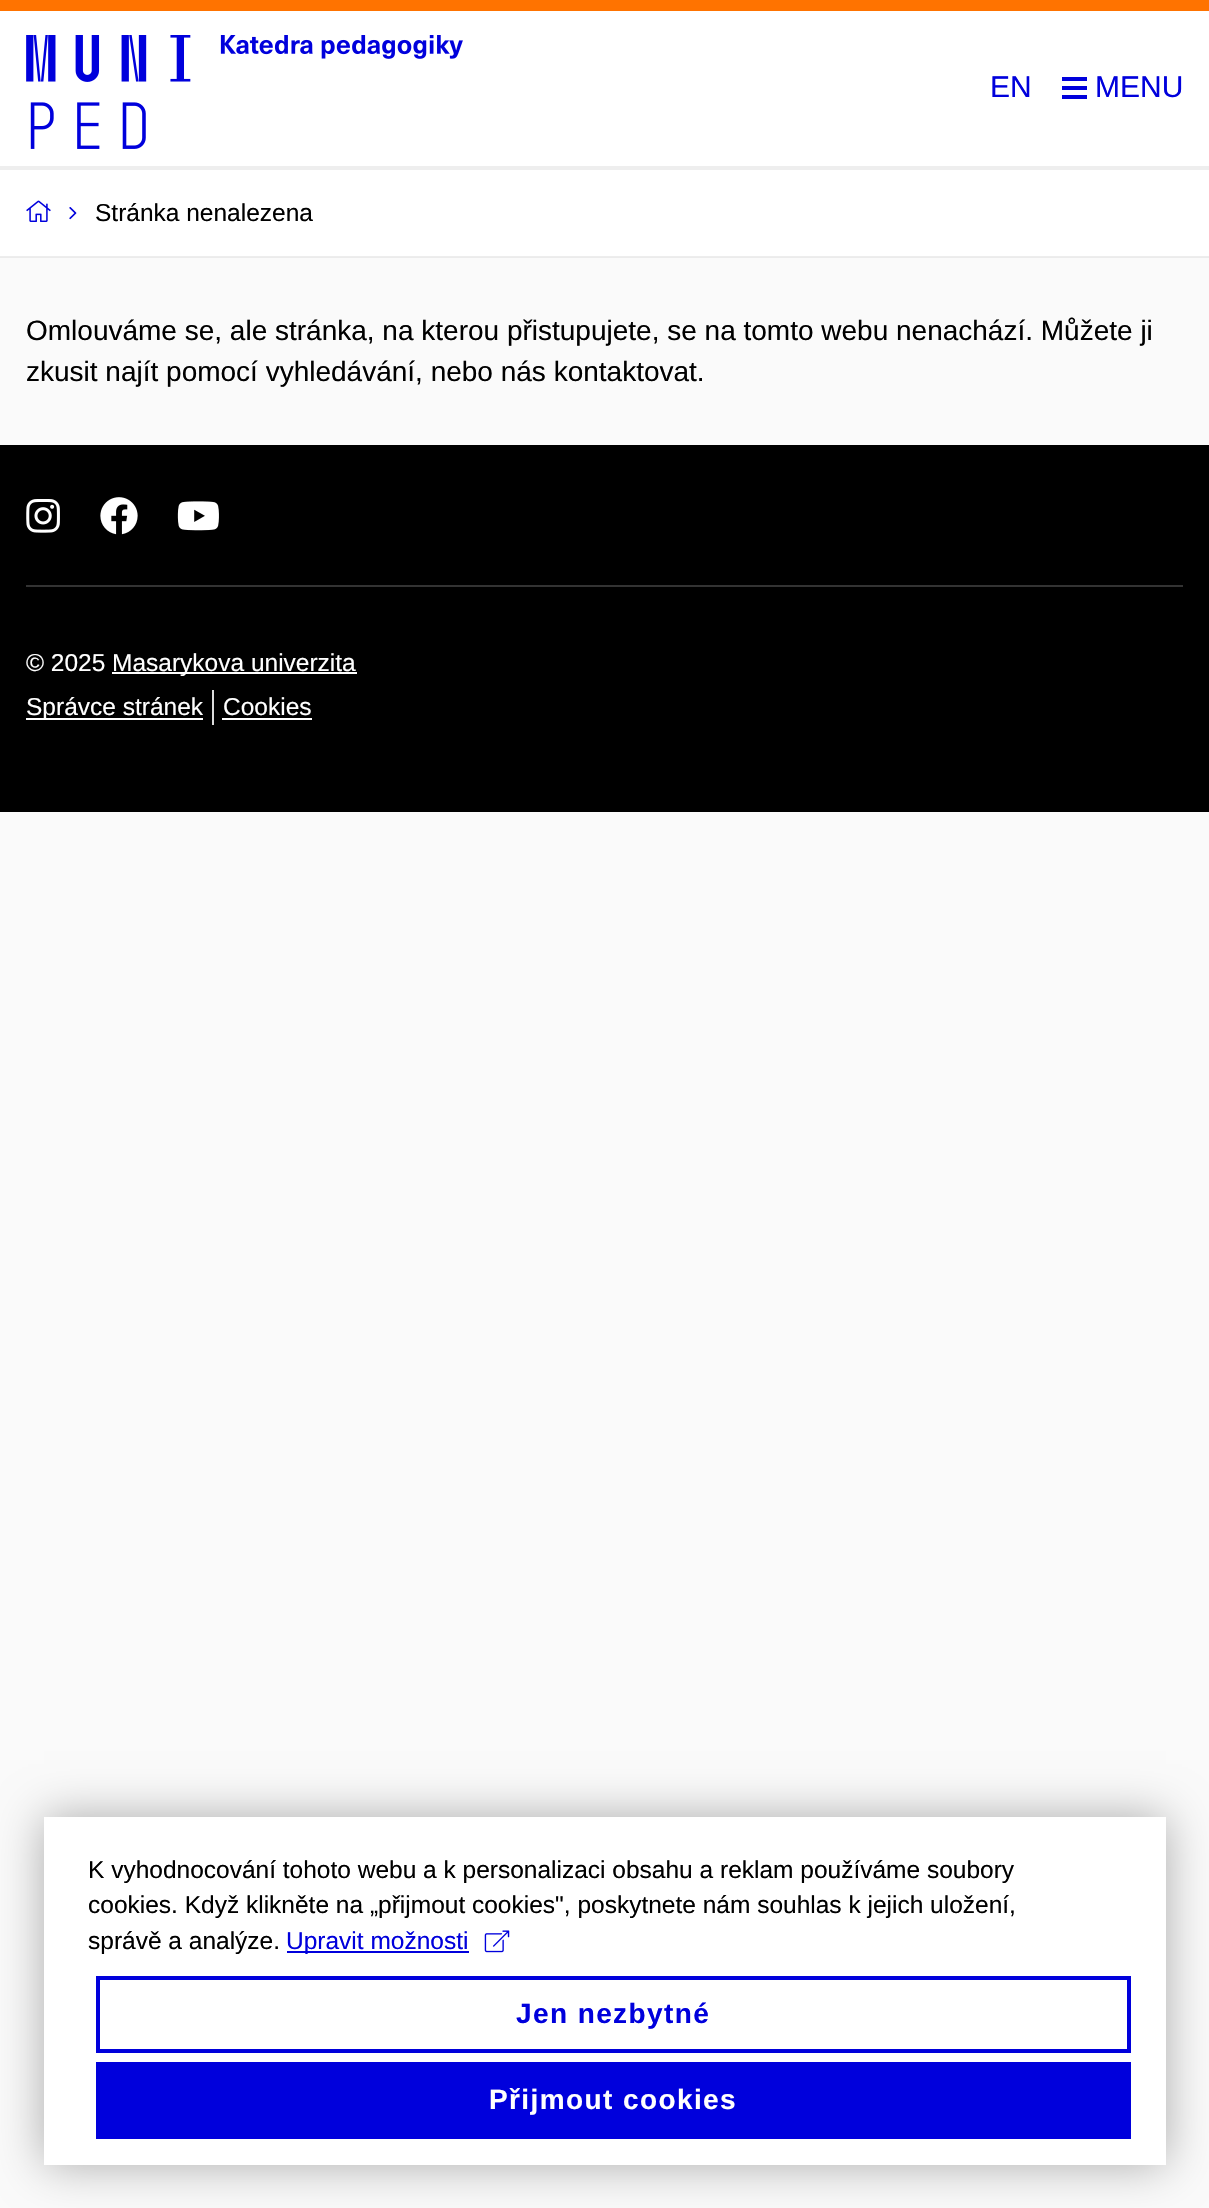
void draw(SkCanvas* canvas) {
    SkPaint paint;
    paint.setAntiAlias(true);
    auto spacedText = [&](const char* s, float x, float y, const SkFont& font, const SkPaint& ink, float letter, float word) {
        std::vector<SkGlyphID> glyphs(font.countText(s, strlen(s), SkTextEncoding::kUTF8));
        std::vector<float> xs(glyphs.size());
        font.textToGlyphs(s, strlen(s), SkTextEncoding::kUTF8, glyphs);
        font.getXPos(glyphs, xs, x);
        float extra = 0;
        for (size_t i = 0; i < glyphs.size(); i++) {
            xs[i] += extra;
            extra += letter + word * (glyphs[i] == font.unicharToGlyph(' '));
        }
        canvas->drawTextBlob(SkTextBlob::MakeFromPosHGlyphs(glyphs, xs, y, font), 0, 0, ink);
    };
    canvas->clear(0xFFFAFAFA);
    paint.setColor(0xFFEBEBEB);
    canvas->drawRect(SkRect::MakeXYWH(0, 257, 1209, 1), paint);
    paint.setColor(0xFFFFFFFF);
    canvas->drawRect(SkRect::MakeXYWH(0, 11, 1209, 155), paint);
    paint.setColor(0xFFFF7300);
    canvas->drawRect(SkRect::MakeXYWH(0, 0, 1209, 11), paint);
    paint.setColor(0xFFEEEEEE);
    canvas->drawRect(SkRect::MakeXYWH(0, 166, 1209, 4), paint);
    canvas->drawImageRect(SkImages::DeferredFromEncodedData(SkData::MakeFromFileName("img1.png")), SkRect::MakeXYWH(26, 35, 437, 114), SkSamplingOptions());
    SkFont font1(fontMgr->matchFamilyStyle("Liberation Sans", SkFontStyle::Normal()), 30);
    font1.setSubpixel(true);
    paint.setColor(0xFF0000DC);
    canvas->drawString("EN", 990, 97, font1, paint);
    canvas->drawRect(SkRect::MakeXYWH(1062, 77, 25, 4), paint);
    canvas->drawRect(SkRect::MakeXYWH(1062, 86, 25, 4), paint);
    canvas->drawRect(SkRect::MakeXYWH(1062, 95, 25, 4), paint);
    canvas->drawString("MENU", 1095, 97, font1, paint);
    paint.setColor(0xFFFFFFFF);
    canvas->drawRect(SkRect::MakeXYWH(0, 170, 1209, 86), paint);
    paint.setColor(0xFFEDEDED);
    canvas->drawRect(SkRect::MakeXYWH(0, 256, 1209, 1), paint);
    canvas->drawImageRect(SkImages::DeferredFromEncodedData(SkData::MakeFromFileName("img2.png")), SkRect::MakeXYWH(26, 200, 25, 22), SkSamplingOptions());
    canvas->drawImageRect(SkImages::DeferredFromEncodedData(SkData::MakeFromFileName("img3.png")), SkRect::MakeXYWH(69, 207, 8, 13), SkSamplingOptions());
    SkFont font2(fontMgr->matchFamilyStyle("Liberation Sans", SkFontStyle::Normal()), 24.5f);
    font2.setSubpixel(true);
    paint.setColor(0xFF000000);
    canvas->drawString("Stránka nenalezena", 95, 221, font2, paint);
    SkFont font3(fontMgr->matchFamilyStyle("Liberation Sans", SkFontStyle::Normal()), 28);
    font3.setSubpixel(true);
    canvas->drawString("Omlouváme se, ale stránka, na kterou přistupujete, se na tomto webu nenachází. Můžete ji", 26, 340, font3, paint);
    canvas->drawString("zkusit najít pomocí vyhledávání, nebo nás kontaktovat.", 26, 381, font3, paint);
    canvas->drawRect(SkRect::MakeXYWH(0, 445, 1209, 367), paint);
    paint.setColor(0xFF333333);
    canvas->drawRect(SkRect::MakeXYWH(26, 585, 1157, 2), paint);
    canvas->drawImageRect(SkImages::DeferredFromEncodedData(SkData::MakeFromFileName("img4.png")), SkRect::MakeXYWH(26, 499, 34, 34), SkSamplingOptions());
    canvas->drawImageRect(SkImages::DeferredFromEncodedData(SkData::MakeFromFileName("img5.png")), SkRect::MakeXYWH(100, 497, 38, 38), SkSamplingOptions());
    canvas->drawImageRect(SkImages::DeferredFromEncodedData(SkData::MakeFromFileName("img6.png")), SkRect::MakeXYWH(177, 501, 42, 30), SkSamplingOptions());
    paint.setColor(0xFFFFFFFF);
    canvas->drawString("© 2025", 26, 671, font2, paint);
    canvas->drawRect(SkRect::MakeXYWH(112, 672, 245, 2), paint);
    canvas->drawString("Masarykova univerzita", 112, 671, font2, paint);
    paint.setColor(0xFFDCDCDC);
    canvas->drawRect(SkRect::MakeXYWH(212, 690, 2, 35), paint);
    paint.setColor(0xFFFFFFFF);
    canvas->drawRect(SkRect::MakeXYWH(26, 718, 177, 2), paint);
    canvas->drawString("Správce stránek", 26, 715, font2, paint);
    canvas->drawString("Cookies", 223, 715, font2, paint);
    canvas->drawRect(SkRect::MakeXYWH(222, 718, 90, 2), paint);
    paint.setColor(0xFFAAAAAA);
    paint.setMaskFilter(SkMaskFilter::MakeBlur(kNormal_SkBlurStyle, 22));
    canvas->drawRect(SkRect::MakeXYWH(44, 1817, 1122, 348), paint);
    paint.setMaskFilter(nullptr);
    paint.setColor(0xFFFFFFFF);
    canvas->drawRect(SkRect::MakeXYWH(44, 1817, 1122, 348), paint);
    paint.setColor(0xFF000000);
    canvas->drawString("K vyhodnocování tohoto webu a k personalizaci obsahu a reklam používáme soubory", 88, 1878, font2, paint);
    canvas->drawString("cookies. Když klikněte na „přijmout cookies\", poskytnete nám souhlas k jejich uložení,", 88, 1913, font2, paint);
    canvas->drawString("správě a analýze.", 88, 1949, font2, paint);
    paint.setColor(0xFF0000DC);
    canvas->drawRect(SkRect::MakeXYWH(287, 1951, 182, 2), paint);
    canvas->drawString("Upravit možnosti", 286, 1949, font2, paint);
    canvas->drawImageRect(SkImages::DeferredFromEncodedData(SkData::MakeFromFileName("img7.png")), SkRect::MakeXYWH(484, 1930, 26, 23), SkSamplingOptions());
    paint.setStyle(SkPaint::kStroke_Style);
    paint.setStrokeWidth(4);
    canvas->drawRect(SkRect::MakeXYWH(98, 1978, 1031, 73), paint);
    SkFont font4(fontMgr->matchFamilyStyle("Liberation Sans", SkFontStyle::Bold()), 28);
    font4.setSubpixel(true);
    paint.setStyle(SkPaint::kFill_Style);
    spacedText("Jen nezbytné", 516, 2023, font4, paint, 1.4f, 0);
    canvas->drawRect(SkRect::MakeXYWH(96, 2062, 1035, 77), paint);
    paint.setColor(0xFFFFFFFF);
    spacedText("Přijmout cookies", 489, 2109, font4, paint, 1.4f, 0);
}
